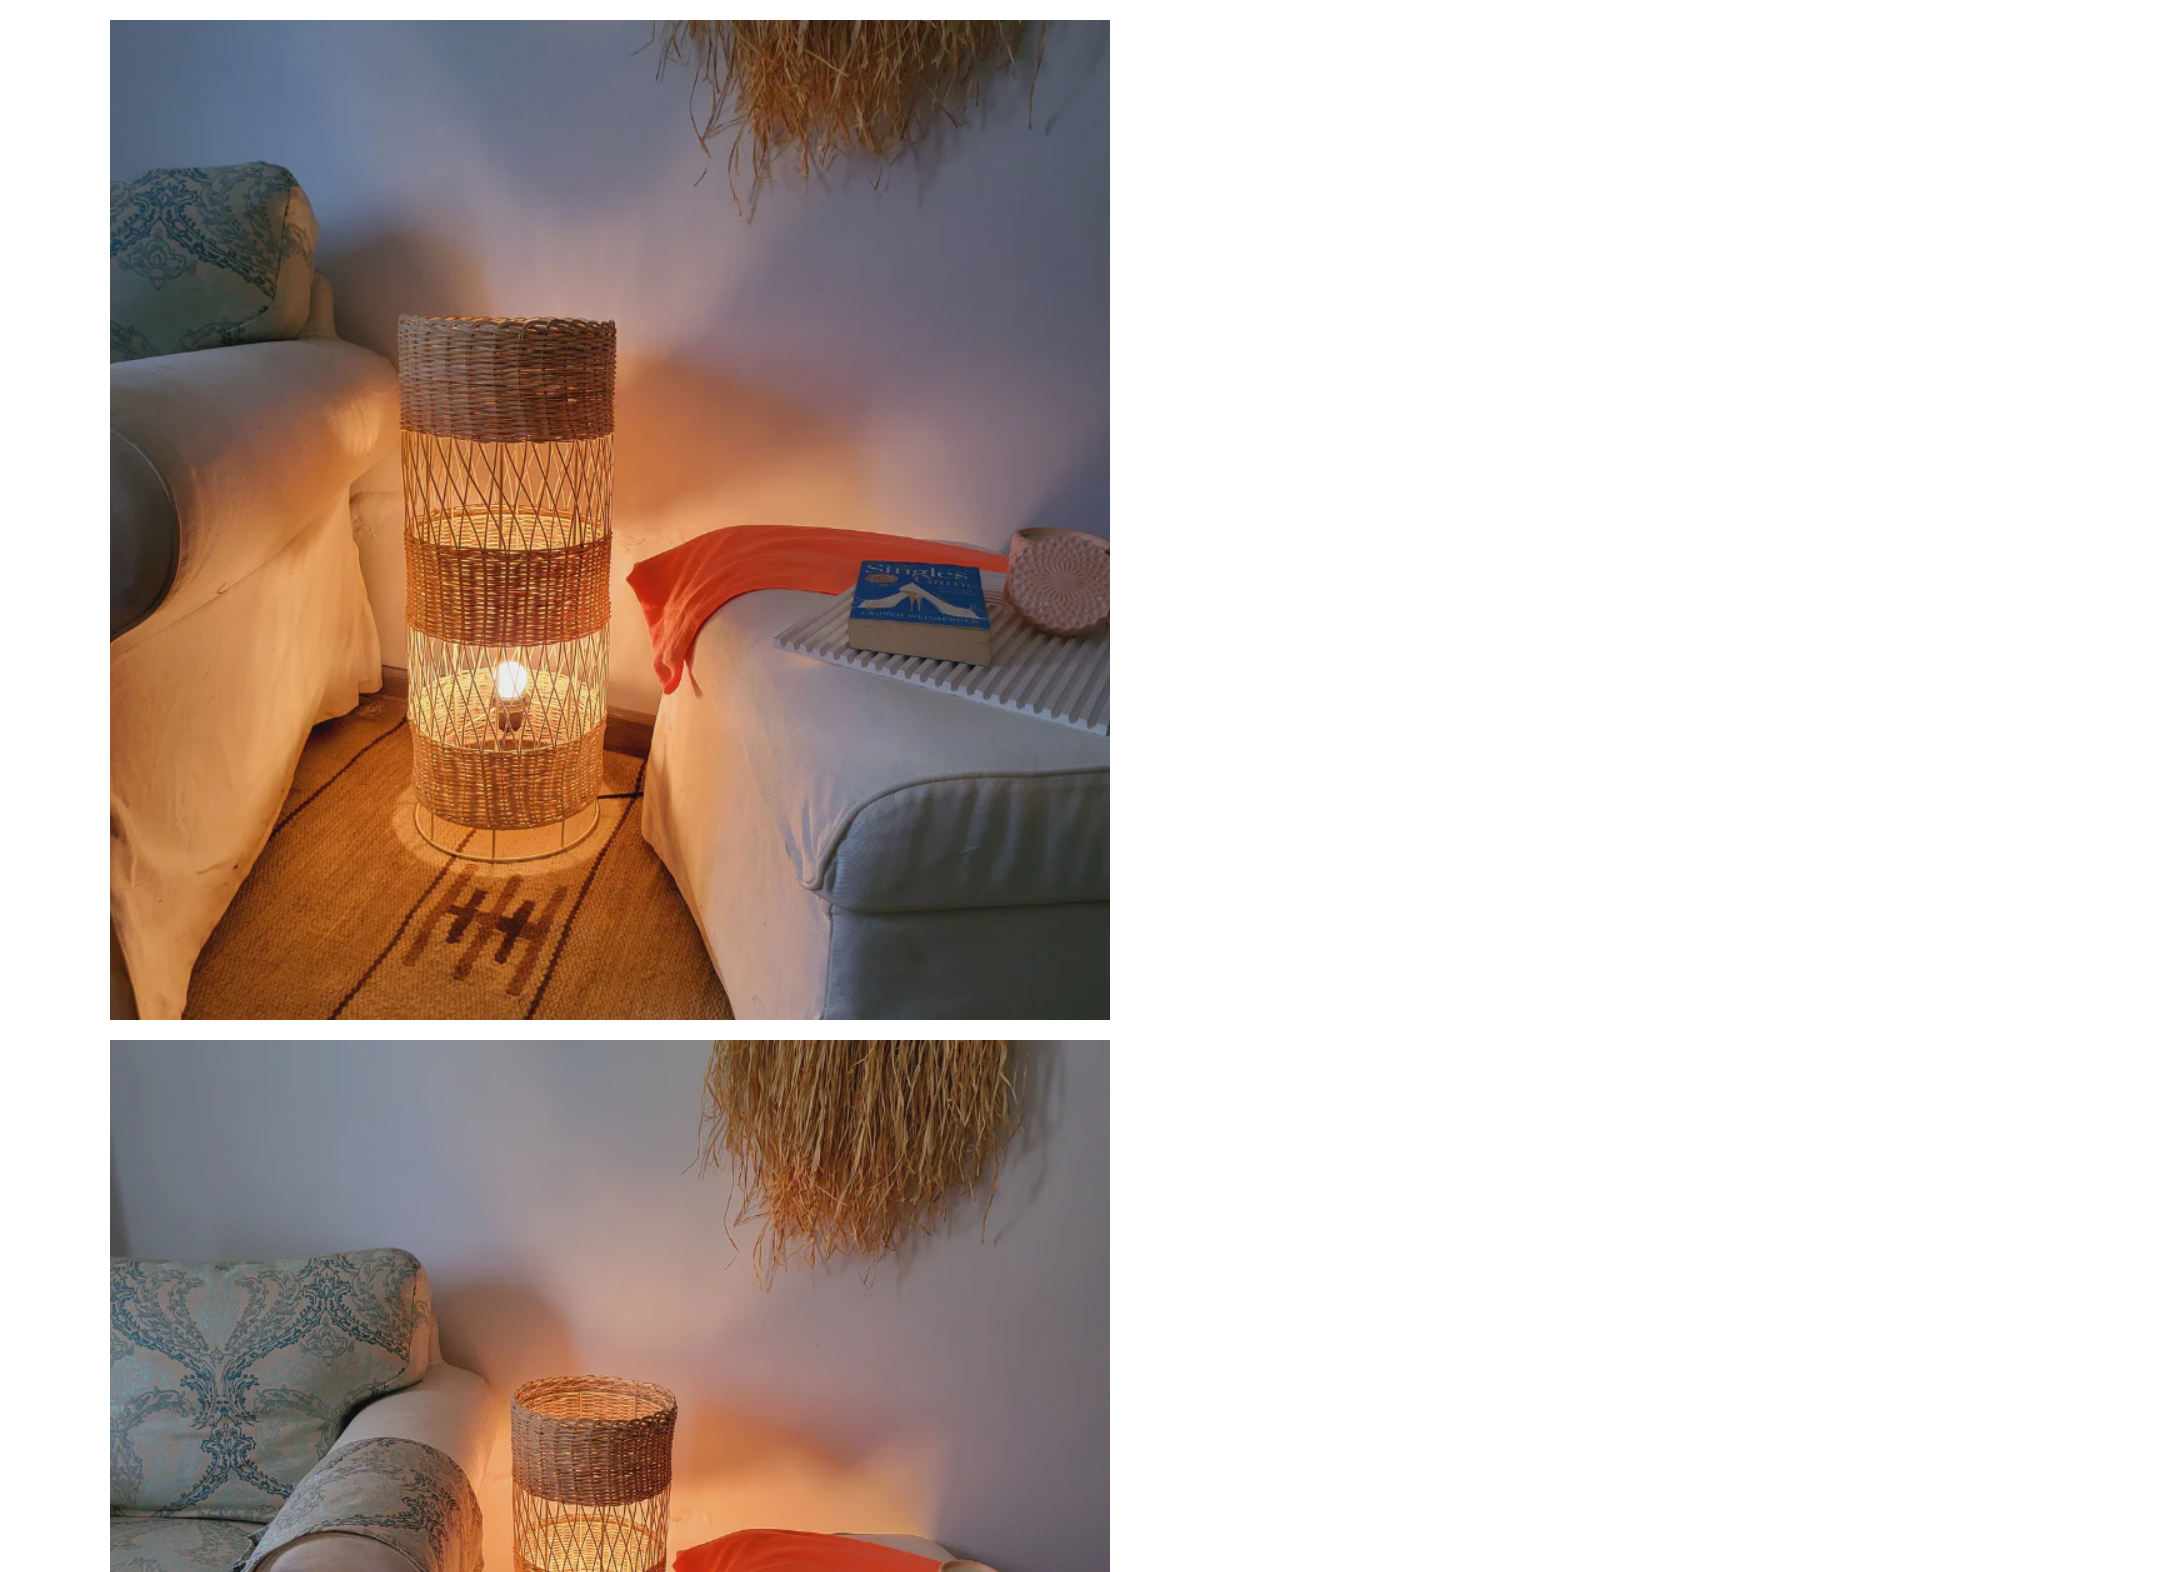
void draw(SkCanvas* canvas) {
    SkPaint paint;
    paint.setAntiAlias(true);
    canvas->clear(0xFFFFFFFF);
    canvas->drawImageRect(SkImages::DeferredFromEncodedData(SkData::MakeFromFileName("img1.png")), SkRect::MakeXYWH(110, 20, 1000, 1000), SkSamplingOptions());
    canvas->drawImageRect(SkImages::DeferredFromEncodedData(SkData::MakeFromFileName("img2.png")), SkRect::MakeXYWH(110, 1040, 1000, 532), SkSamplingOptions());
}
